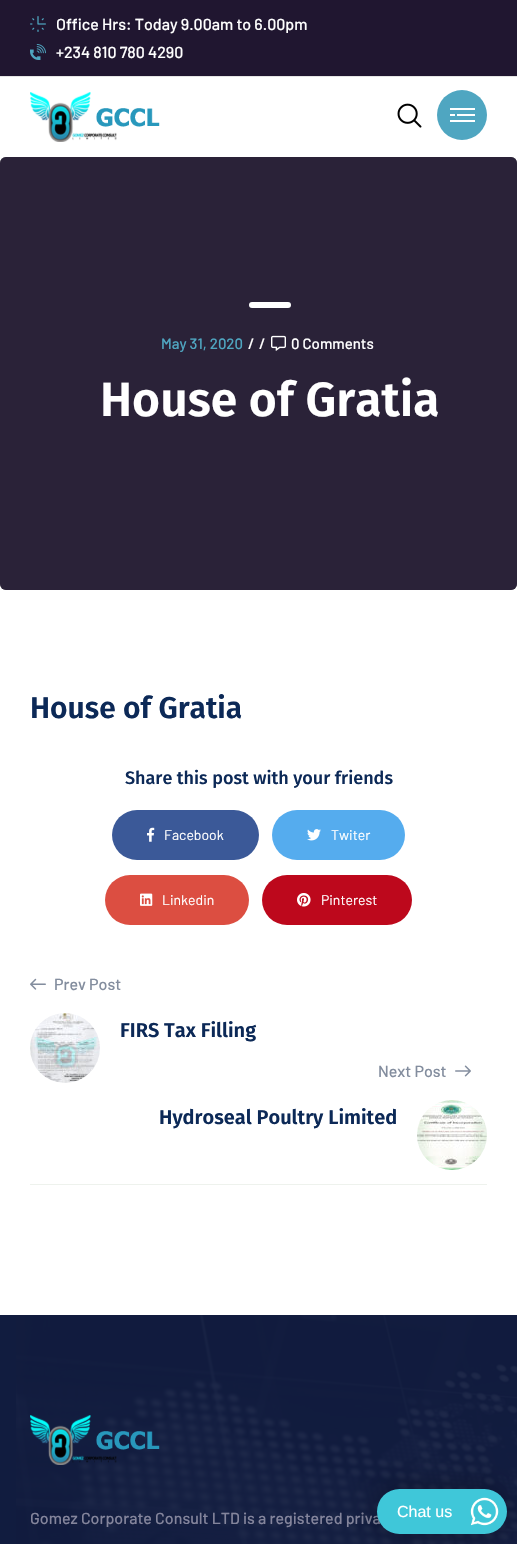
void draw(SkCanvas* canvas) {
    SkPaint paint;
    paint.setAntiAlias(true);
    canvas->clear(0xFFFFFFFF);
    paint.setColor(0xFF201630);
    canvas->drawRect(SkRect::MakeXYWH(0, 0, 517, 76), paint);
    canvas->drawImageRect(SkImages::DeferredFromEncodedData(SkData::MakeFromFileName("img1.png")), SkRect::MakeXYWH(30, 16, 16, 16), SkSamplingOptions());
    SkFont font1(fontMgr->matchFamilyStyle("Barlow", SkFontStyle(500, SkFontStyle::kNormal_Width, SkFontStyle::kUpright_Slant)), 16);
    font1.setSubpixel(true);
    paint.setColor(0xFFFFFFFF);
    canvas->drawString("Office Hrs: Today 9.00am to 6.00pm", 56, 30, font1, paint);
    canvas->drawImageRect(SkImages::DeferredFromEncodedData(SkData::MakeFromFileName("img2.png")), SkRect::MakeXYWH(30, 44, 16, 16), SkSamplingOptions());
    canvas->drawString("+234 810 780 4290", 56, 58, font1, paint);
    paint.setColor(0xFFE5E5E5);
    canvas->drawRect(SkRect::MakeXYWH(0, 76, 517, 1), paint);
    canvas->drawImageRect(SkImages::DeferredFromEncodedData(SkData::MakeFromFileName("img3.png")), SkRect::MakeXYWH(30, 92, 130, 50), SkSamplingOptions());
    canvas->drawImageRect(SkImages::DeferredFromEncodedData(SkData::MakeFromFileName("img4.png")), SkRect::MakeXYWH(397, 103, 25, 25), SkSamplingOptions());
    paint.setColor(0xFF4FA6C1);
    canvas->drawCircle(462, 115, 25, paint);
    canvas->drawImageRect(SkImages::DeferredFromEncodedData(SkData::MakeFromFileName("img5.png")), SkRect::MakeXYWH(450, 108, 25, 14), SkSamplingOptions());
    paint.setColor(0xFF646464);
    canvas->drawRoundRect(SkRect::MakeXYWH(0, 157, 517, 433), 6, 6, paint);
    paint.setColor(0xD9201630);
    canvas->drawRoundRect(SkRect::MakeXYWH(0, 157, 517, 433), 6, 6, paint);
    paint.setColor(0xFFFFFFFF);
    canvas->drawRoundRect(SkRect::MakeXYWH(249, 302, 42, 6), 3, 3, paint);
    SkFont font2(fontMgr->matchFamilyStyle("Barlow", SkFontStyle(500, SkFontStyle::kNormal_Width, SkFontStyle::kUpright_Slant)), 15);
    font2.setSubpixel(true);
    paint.setColor(0xFF4FA6C1);
    canvas->drawString("May 31, 2020", 161, 349, font2, paint);
    paint.setColor(0xFFFFFFFF);
    canvas->drawString("/", 248, 349, font2, paint);
    canvas->drawString("/", 259, 349, font2, paint);
    canvas->drawImageRect(SkImages::DeferredFromEncodedData(SkData::MakeFromFileName("img6.png")), SkRect::MakeXYWH(271, 335, 15, 16), SkSamplingOptions());
    canvas->drawString("0 Comments", 291, 349, font2, paint);
    SkFont font3(fontMgr->matchFamilyStyle("Fira Sans", SkFontStyle(600, SkFontStyle::kNormal_Width, SkFontStyle::kUpright_Slant)), 48);
    font3.setSubpixel(true);
    canvas->drawString("House of Gratia", 100, 416, font3, paint);
    SkFont font4(fontMgr->matchFamilyStyle("Fira Sans", SkFontStyle(600, SkFontStyle::kNormal_Width, SkFontStyle::kUpright_Slant)), 30);
    font4.setSubpixel(true);
    paint.setColor(0xFF0C2957);
    canvas->drawString("House of Gratia", 30, 718, font4, paint);
    SkFont font5(fontMgr->matchFamilyStyle("Fira Sans", SkFontStyle(500, SkFontStyle::kNormal_Width, SkFontStyle::kUpright_Slant)), 18);
    font5.setSubpixel(true);
    canvas->drawString("Share this post with your friends", 125, 784, font5, paint);
    paint.setColor(0xFF3B5998);
    canvas->drawRoundRect(SkRect::MakeXYWH(112, 810, 147, 50), 25, 25, paint);
    canvas->drawImageRect(SkImages::DeferredFromEncodedData(SkData::MakeFromFileName("img7.png")), SkRect::MakeXYWH(147, 827, 8, 15), SkSamplingOptions());
    SkFont font6(fontMgr->matchFamilyStyle("Barlow", SkFontStyle::Normal()), 14);
    font6.setSubpixel(true);
    paint.setColor(0xFFFFFFFF);
    canvas->drawString("Facebook", 164, 840, font6, paint);
    paint.setColor(0xFF55ACEE);
    canvas->drawRoundRect(SkRect::MakeXYWH(272, 810, 133, 50), 25, 25, paint);
    canvas->drawImageRect(SkImages::DeferredFromEncodedData(SkData::MakeFromFileName("img8.png")), SkRect::MakeXYWH(307, 829, 14, 12), SkSamplingOptions());
    paint.setColor(0xFFFFFFFF);
    canvas->drawString("Twiter", 331, 840, font6, paint);
    paint.setColor(0xFFDC4E41);
    canvas->drawRoundRect(SkRect::MakeXYWH(105, 875, 144, 50), 25, 25, paint);
    canvas->drawImageRect(SkImages::DeferredFromEncodedData(SkData::MakeFromFileName("img9.png")), SkRect::MakeXYWH(140, 893, 13, 13), SkSamplingOptions());
    paint.setColor(0xFFFFFFFF);
    canvas->drawString("Linkedin", 162, 905, font6, paint);
    paint.setColor(0xFFBD081C);
    canvas->drawRoundRect(SkRect::MakeXYWH(262, 875, 150, 50), 25, 25, paint);
    canvas->drawImageRect(SkImages::DeferredFromEncodedData(SkData::MakeFromFileName("img10.png")), SkRect::MakeXYWH(297, 893, 14, 14), SkSamplingOptions());
    paint.setColor(0xFFFFFFFF);
    canvas->drawString("Pinterest", 321, 905, font6, paint);
    paint.setColor(0xFFEEF2ED);
    canvas->drawRect(SkRect::MakeXYWH(30, 1184, 457, 1), paint);
    canvas->drawImageRect(SkImages::DeferredFromEncodedData(SkData::MakeFromFileName("img11.png")), SkRect::MakeXYWH(30, 978, 16, 12), SkSamplingOptions());
    paint.setColor(0xFF838D9E);
    canvas->drawString("Prev Post", 54, 990, font1, paint);
    canvas->drawImageRect(SkImages::DeferredFromEncodedData(SkData::MakeFromFileName("img12.png")), SkRect::MakeXYWH(30, 1013, 70, 70), SkSamplingOptions());
    SkFont font7(fontMgr->matchFamilyStyle("Fira Sans", SkFontStyle(600, SkFontStyle::kNormal_Width, SkFontStyle::kUpright_Slant)), 20);
    font7.setSubpixel(true);
    paint.setColor(0xFF0C2957);
    canvas->drawString("FIRS Tax Filling", 120, 1037, font7, paint);
    paint.setColor(0xFF838D9E);
    canvas->drawString("Next Post", 378, 1077, font1, paint);
    canvas->drawImageRect(SkImages::DeferredFromEncodedData(SkData::MakeFromFileName("img13.png")), SkRect::MakeXYWH(455, 1065, 16, 12), SkSamplingOptions());
    paint.setColor(0xFF0C2957);
    canvas->drawString("Hydroseal Poultry Limited", 159, 1124, font7, paint);
    canvas->drawImageRect(SkImages::DeferredFromEncodedData(SkData::MakeFromFileName("img14.png")), SkRect::MakeXYWH(417, 1100, 70, 70), SkSamplingOptions());
    paint.setColor(0xFF111C3F);
    canvas->drawRect(SkRect::MakeXYWH(0, 1315, 517, 229), paint);
    canvas->drawImageRect(SkImages::DeferredFromEncodedData(SkData::MakeFromFileName("img15.png")), SkRect::MakeXYWH(16, 1315, 501, 229), SkSamplingOptions());
    canvas->drawImageRect(SkImages::DeferredFromEncodedData(SkData::MakeFromFileName("img16.png")), SkRect::MakeXYWH(30, 1415, 130, 50), SkSamplingOptions());
    paint.setColor(0xFF84859C);
    canvas->drawString("Gomez Corporate Consult LTD is a registered priva", 30, 1524, font1, paint);
    paint.setColor(0x4D000000);
    paint.setMaskFilter(SkMaskFilter::MakeBlur(kNormal_SkBlurStyle, 15));
    canvas->drawRoundRect(SkRect::MakeXYWH(377, 1489, 130, 45), 22.5f, 22.5f, paint);
    paint.setMaskFilter(nullptr);
    paint.setColor(0xFF3FC7D9);
    canvas->drawRoundRect(SkRect::MakeXYWH(377, 1489, 130, 45), 22.5f, 22.5f, paint);
    SkFont font8(fontMgr->matchFamilyStyle("Liberation Sans", SkFontStyle::Normal()), 16);
    font8.setSubpixel(true);
    paint.setColor(0xFFFFFFFF);
    canvas->drawString("Chat us", 397, 1517, font8, paint);
    canvas->drawImageRect(SkImages::DeferredFromEncodedData(SkData::MakeFromFileName("img17.png")), SkRect::MakeXYWH(470, 1497, 29, 29), SkSamplingOptions());
}
